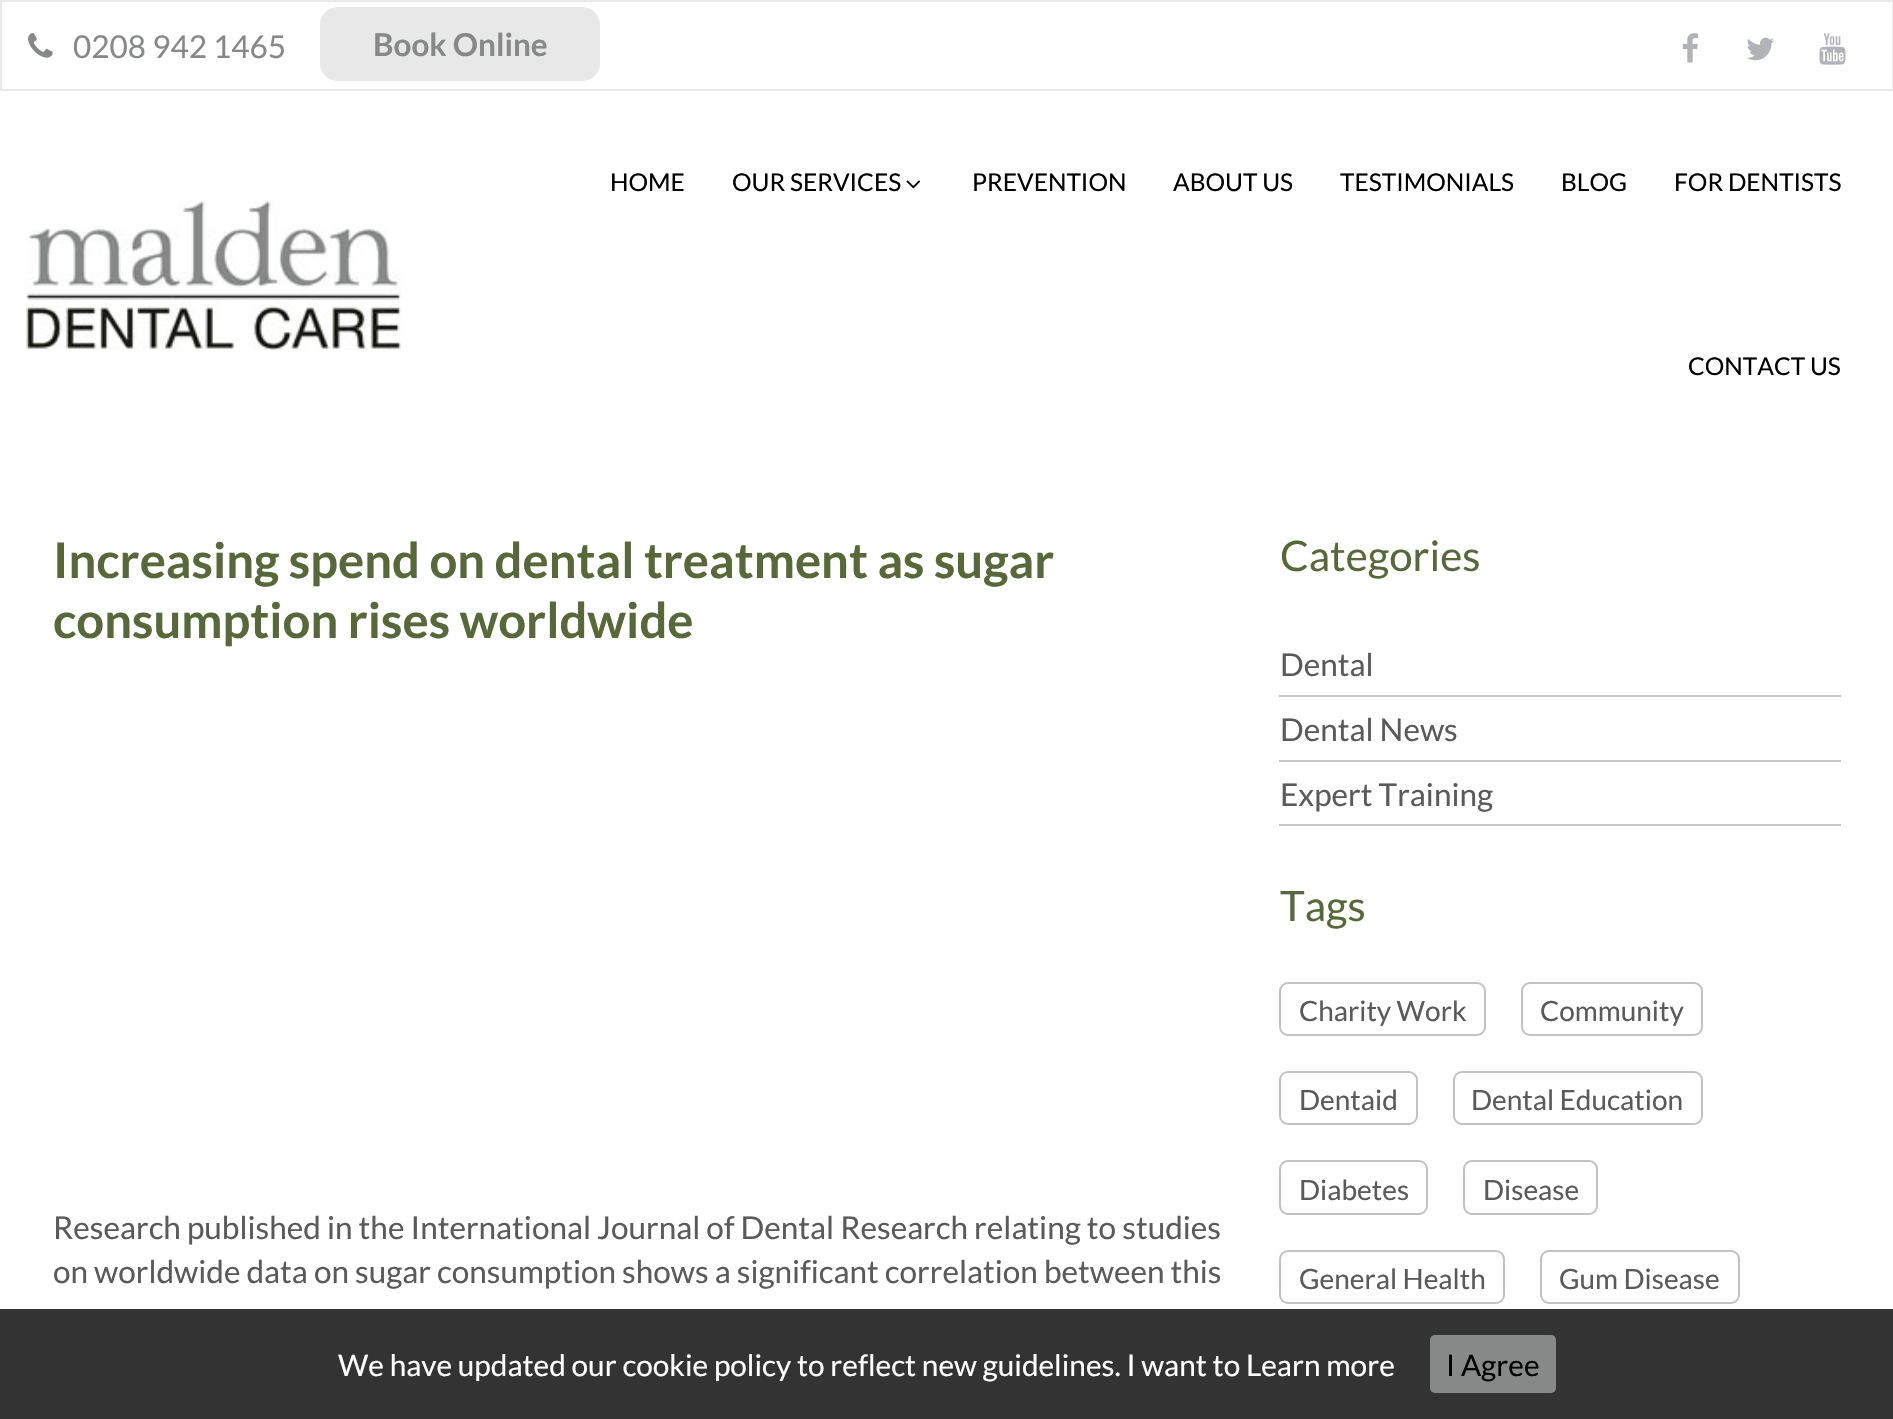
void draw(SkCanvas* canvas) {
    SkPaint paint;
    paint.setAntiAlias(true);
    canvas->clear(0xFFFFFFFF);
    paint.setStyle(SkPaint::kStroke_Style);
    paint.setStrokeWidth(2);
    paint.setColor(0xFFE9E9E9);
    canvas->drawRect(SkRect::MakeXYWH(1, 1, 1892, 89), paint);
    canvas->drawImageRect(SkImages::DeferredFromEncodedData(SkData::MakeFromFileName("img1.png")), SkRect::MakeXYWH(28, 33, 25, 25), SkSamplingOptions());
    SkFont font1(fontMgr->matchFamilyStyle("Lato", SkFontStyle::Normal()), 31.5f);
    font1.setSubpixel(true);
    paint.setStyle(SkPaint::kFill_Style);
    paint.setColor(0xFF878988);
    canvas->drawString("0208 942 1465", 73, 58, font1, paint);
    paint.setColor(0xFFE8E8E8);
    canvas->drawRoundRect(SkRect::MakeXYWH(320, 7, 280, 74), 18, 18, paint);
    SkFont font2(fontMgr->matchFamilyStyle("Lato", SkFontStyle::Bold()), 31.5f);
    font2.setSubpixel(true);
    paint.setColor(0xFF878988);
    canvas->drawString("Book Online", 373, 56, font2, paint);
    canvas->drawImageRect(SkImages::DeferredFromEncodedData(SkData::MakeFromFileName("img2.png")), SkRect::MakeXYWH(1682, 33, 16, 30), SkSamplingOptions());
    canvas->drawImageRect(SkImages::DeferredFromEncodedData(SkData::MakeFromFileName("img3.png")), SkRect::MakeXYWH(1747, 37, 27, 24), SkSamplingOptions());
    canvas->drawImageRect(SkImages::DeferredFromEncodedData(SkData::MakeFromFileName("img4.png")), SkRect::MakeXYWH(1819, 33, 27, 32), SkSamplingOptions());
    canvas->drawImageRect(SkImages::DeferredFromEncodedData(SkData::MakeFromFileName("img5.png")), SkRect::MakeXYWH(26, 201, 375, 149), SkSamplingOptions());
    SkFont font3(fontMgr->matchFamilyStyle("Lato", SkFontStyle::Normal()), 24.5f);
    font3.setSubpixel(true);
    paint.setColor(0xFF000000);
    canvas->drawString("HOME", 610, 191, font3, paint);
    canvas->drawString("OUR SERVICES", 732, 191, font3, paint);
    canvas->drawImageRect(SkImages::DeferredFromEncodedData(SkData::MakeFromFileName("img6.png")), SkRect::MakeXYWH(906, 180, 15, 9), SkSamplingOptions());
    canvas->drawString("PREVENTION", 972, 191, font3, paint);
    canvas->drawString("ABOUT US", 1173, 191, font3, paint);
    canvas->drawString("TESTIMONIALS", 1340, 191, font3, paint);
    canvas->drawString("BLOG", 1561, 191, font3, paint);
    canvas->drawString("FOR DENTISTS", 1674, 191, font3, paint);
    canvas->drawString("CONTACT US", 1688, 375, font3, paint);
    SkFont font4(fontMgr->matchFamilyStyle("Lato", SkFontStyle::Bold()), 49);
    font4.setSubpixel(true);
    paint.setColor(0xFF58683A);
    canvas->drawString("Increasing spend on dental treatment as sugar", 53, 578, font4, paint);
    canvas->drawString("consumption rises worldwide", 53, 638, font4, paint);
    paint.setColor(0xFF5A5A5A);
    canvas->drawString("Research published in the International Journal of Dental Research relating to studies", 53, 1239, font1, paint);
    canvas->drawString("on worldwide data on sugar consumption shows a significant correlation between this", 53, 1283, font1, paint);
    SkFont font5(fontMgr->matchFamilyStyle("Lato", SkFontStyle::Normal()), 42);
    font5.setSubpixel(true);
    paint.setColor(0xFF58683A);
    canvas->drawString("Categories", 1280, 571, font5, paint);
    paint.setColor(0xFFC7C7C7);
    canvas->drawRect(SkRect::MakeXYWH(1279, 695, 562, 2), paint);
    paint.setColor(0xFF5A5A5A);
    canvas->drawString("Dental", 1280, 676, font1, paint);
    paint.setColor(0xFFC7C7C7);
    canvas->drawRect(SkRect::MakeXYWH(1279, 760, 562, 2), paint);
    paint.setColor(0xFF5A5A5A);
    canvas->drawString("Dental News", 1280, 741, font1, paint);
    paint.setColor(0xFFC7C7C7);
    canvas->drawRect(SkRect::MakeXYWH(1279, 824, 562, 2), paint);
    paint.setColor(0xFF5A5A5A);
    canvas->drawString("Expert Training", 1280, 806, font1, paint);
    paint.setColor(0xFF58683A);
    canvas->drawString("Tags", 1280, 921, font5, paint);
    paint.setStyle(SkPaint::kStroke_Style);
    paint.setColor(0xFFC2C2C2);
    canvas->drawRoundRect(SkRect::MakeXYWH(1280, 983, 205, 52), 8, 8, paint);
    SkFont font6(fontMgr->matchFamilyStyle("Lato", SkFontStyle::Normal()), 28);
    font6.setSubpixel(true);
    paint.setStyle(SkPaint::kFill_Style);
    paint.setColor(0xFF5A5A5A);
    canvas->drawString("Charity Work", 1299, 1021, font6, paint);
    paint.setStyle(SkPaint::kStroke_Style);
    paint.setColor(0xFFC2C2C2);
    canvas->drawRoundRect(SkRect::MakeXYWH(1522, 983, 180, 52), 8, 8, paint);
    paint.setStyle(SkPaint::kFill_Style);
    paint.setColor(0xFF5A5A5A);
    canvas->drawString("Community", 1540, 1021, font6, paint);
    paint.setStyle(SkPaint::kStroke_Style);
    paint.setColor(0xFFC2C2C2);
    canvas->drawRoundRect(SkRect::MakeXYWH(1280, 1072, 137, 52), 8, 8, paint);
    paint.setStyle(SkPaint::kFill_Style);
    paint.setColor(0xFF5A5A5A);
    canvas->drawString("Dentaid", 1299, 1110, font6, paint);
    paint.setStyle(SkPaint::kStroke_Style);
    paint.setColor(0xFFC2C2C2);
    canvas->drawRoundRect(SkRect::MakeXYWH(1454, 1072, 248, 52), 8, 8, paint);
    paint.setStyle(SkPaint::kFill_Style);
    paint.setColor(0xFF5A5A5A);
    canvas->drawString("Dental Education", 1471, 1110, font6, paint);
    paint.setStyle(SkPaint::kStroke_Style);
    paint.setColor(0xFFC2C2C2);
    canvas->drawRoundRect(SkRect::MakeXYWH(1280, 1161, 147, 53), 8, 8, paint);
    paint.setStyle(SkPaint::kFill_Style);
    paint.setColor(0xFF5A5A5A);
    canvas->drawString("Diabetes", 1299, 1200, font6, paint);
    paint.setStyle(SkPaint::kStroke_Style);
    paint.setColor(0xFFC2C2C2);
    canvas->drawRoundRect(SkRect::MakeXYWH(1464, 1161, 133, 53), 8, 8, paint);
    paint.setStyle(SkPaint::kFill_Style);
    paint.setColor(0xFF5A5A5A);
    canvas->drawString("Disease", 1483, 1200, font6, paint);
    paint.setStyle(SkPaint::kStroke_Style);
    paint.setColor(0xFFC2C2C2);
    canvas->drawRoundRect(SkRect::MakeXYWH(1280, 1251, 224, 52), 8, 8, paint);
    paint.setStyle(SkPaint::kFill_Style);
    paint.setColor(0xFF5A5A5A);
    canvas->drawString("General Health", 1299, 1289, font6, paint);
    paint.setStyle(SkPaint::kStroke_Style);
    paint.setColor(0xFFC2C2C2);
    canvas->drawRoundRect(SkRect::MakeXYWH(1541, 1251, 198, 52), 8, 8, paint);
    paint.setStyle(SkPaint::kFill_Style);
    paint.setColor(0xFF5A5A5A);
    canvas->drawString("Gum Disease", 1559, 1289, font6, paint);
    paint.setColor(0xFF333333);
    canvas->drawRect(SkRect::MakeXYWH(0, 1309, 1893, 110), paint);
    SkFont font7(fontMgr->matchFamilyStyle("Lato", SkFontStyle::Normal()), 29.75f);
    font7.setSubpixel(true);
    paint.setColor(0xFFFFFFFF);
    canvas->drawString("We have updated our cookie policy to reflect new guidelines. I want to Learn more", 338, 1376, font7, paint);
    paint.setColor(0xFF878988);
    canvas->drawRoundRect(SkRect::MakeXYWH(1430, 1335, 126, 58), 5, 5, paint);
    paint.setColor(0xFF000000);
    canvas->drawString("I Agree", 1446, 1376, font7, paint);
}
